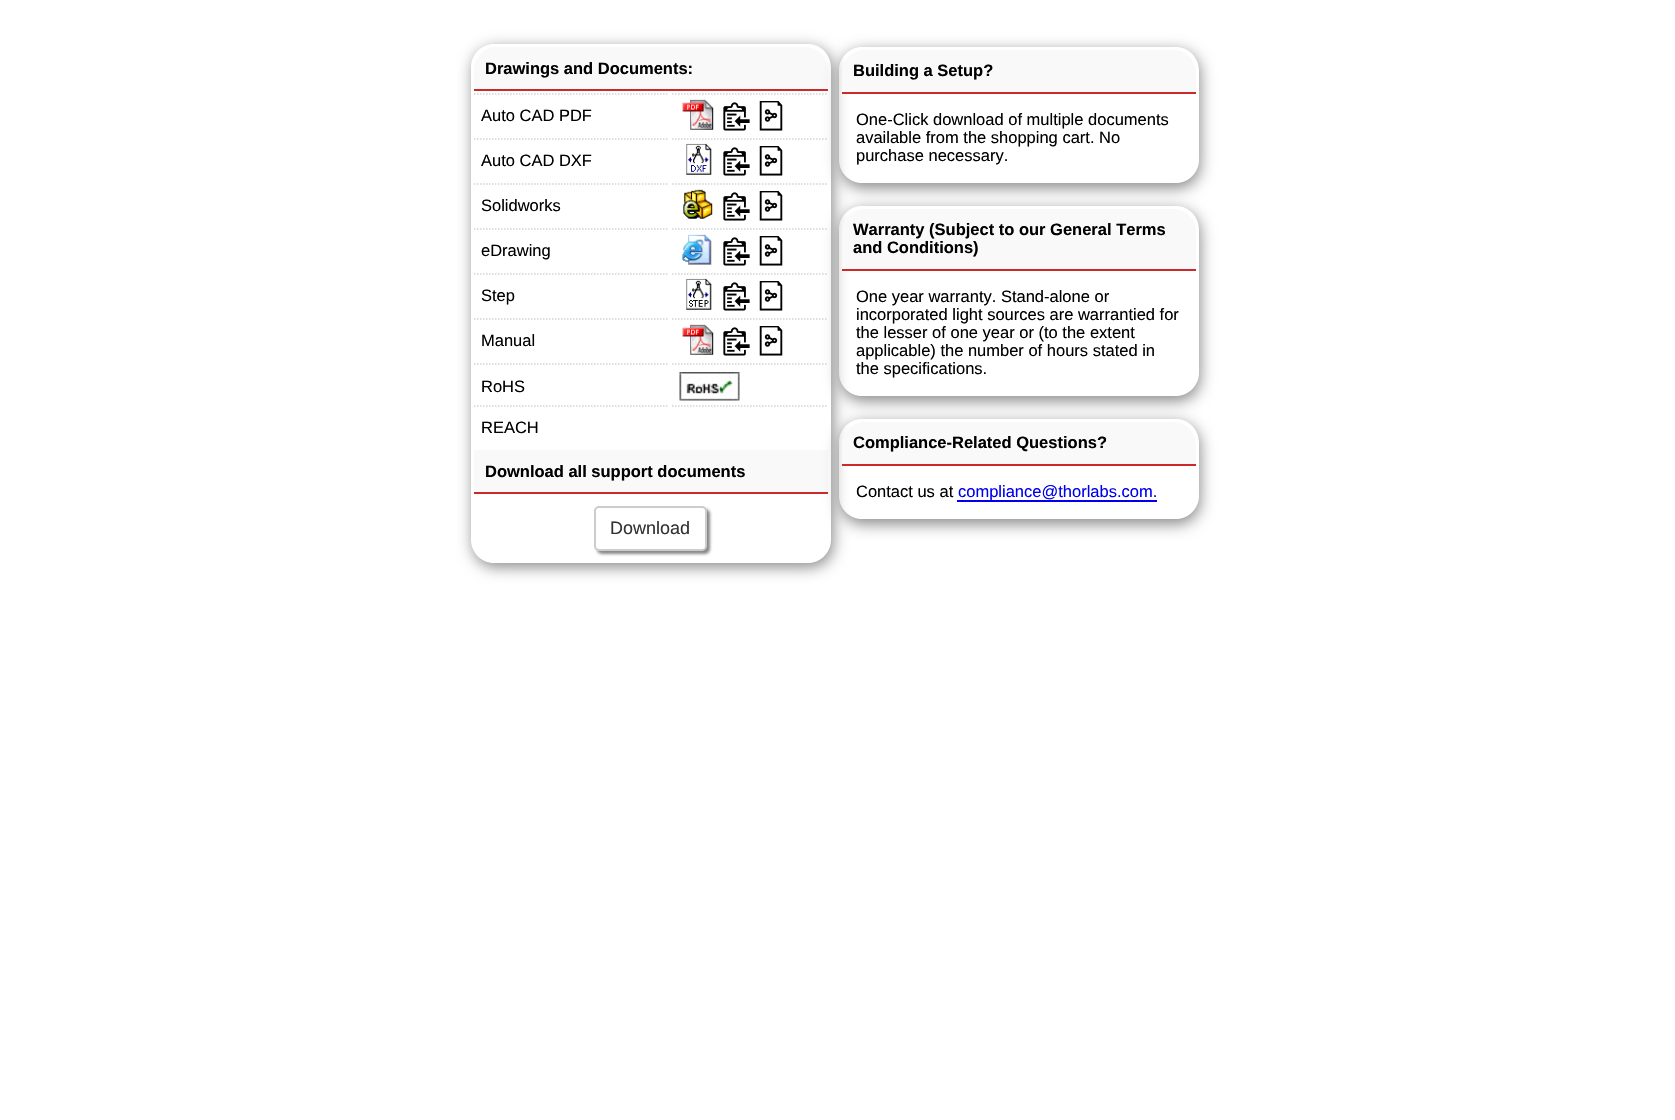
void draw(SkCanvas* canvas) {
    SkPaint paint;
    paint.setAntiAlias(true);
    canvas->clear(0xFFFFFFFF);
    canvas->save();
    canvas->clipPath(SkPathBuilder(SkPathFillType::kEvenOdd).moveTo(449, 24).lineTo(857, 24).lineTo(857, 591).lineTo(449, 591).close().moveTo(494, 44).lineTo(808, 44).cubicTo(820.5f, 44, 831, 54.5f, 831, 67).lineTo(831, 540).cubicTo(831, 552.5f, 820.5f, 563, 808, 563).lineTo(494, 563).cubicTo(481.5f, 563, 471, 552.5f, 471, 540).lineTo(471, 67).cubicTo(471, 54.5f, 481.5f, 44, 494, 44).close().detach(), true);
    paint.setColor(0xFF888888);
    paint.setMaskFilter(SkMaskFilter::MakeBlur(kNormal_SkBlurStyle, 7.5f));
    canvas->drawRoundRect(SkRect::MakeXYWH(473, 48, 360, 519), 23, 23, paint);
    paint.setMaskFilter(nullptr);
    canvas->restore();
    paint.setColor(0xFFF9F9F9);
    canvas->drawPath(SkPathBuilder().moveTo(497, 47).lineTo(805, 47).cubicTo(817.5f, 47, 828, 57.5f, 828, 70).lineTo(828, 90).lineTo(474, 90).lineTo(474, 70).cubicTo(474, 57.5f, 484.5f, 47, 497, 47).close().detach(), paint);
    paint.setColor(0xFFCC292B);
    canvas->drawRect(SkRect::MakeXYWH(474, 89, 354, 2), paint);
    SkFont font1(fontMgr->matchFamilyStyle("Liberation Sans", SkFontStyle::Bold()), 16.5f);
    font1.setSubpixel(true);
    paint.setColor(0xFF000000);
    canvas->drawString("Drawings and Documents:", 485, 74, font1, paint);
    paint.setStyle(SkPaint::kStroke_Style);
    paint.setStrokeWidth(1.5f);
    paint.setColor(0xFFD3D3D3);
    paint.setPathEffect(SkDashPathEffect::Make({{1.5f, 1.5f}}, 0));
    canvas->drawPath(SkPathBuilder().moveTo(474, 94).lineTo(669, 94).detach(), paint);
    paint.setPathEffect(nullptr);
    SkFont font2(fontMgr->matchFamilyStyle("Liberation Sans", SkFontStyle::Normal()), 16.5f);
    font2.setSubpixel(true);
    paint.setStyle(SkPaint::kFill_Style);
    paint.setColor(0xFF000000);
    canvas->drawString("Auto CAD PDF", 481, 121, font2, paint);
    paint.setStyle(SkPaint::kStroke_Style);
    paint.setColor(0xFFD3D3D3);
    paint.setPathEffect(SkDashPathEffect::Make({{1.5f, 1.5f}}, 0));
    canvas->drawPath(SkPathBuilder().moveTo(672, 94).lineTo(828, 94).detach(), paint);
    paint.setPathEffect(nullptr);
    canvas->drawImageRect(SkImages::DeferredFromEncodedData(SkData::MakeFromFileName("img1.png")), SkRect::MakeXYWH(682, 99, 32, 31), SkSamplingOptions());
    canvas->drawImageRect(SkImages::DeferredFromEncodedData(SkData::MakeFromFileName("img2.png")), SkRect::MakeXYWH(723, 102, 27, 29), SkSamplingOptions());
    canvas->drawImageRect(SkImages::DeferredFromEncodedData(SkData::MakeFromFileName("img3.png")), SkRect::MakeXYWH(759, 101, 24, 30), SkSamplingOptions());
    paint.setPathEffect(SkDashPathEffect::Make({{1.5f, 1.5f}}, 0));
    canvas->drawPath(SkPathBuilder().moveTo(474, 139).lineTo(669, 139).detach(), paint);
    paint.setPathEffect(nullptr);
    paint.setStyle(SkPaint::kFill_Style);
    paint.setColor(0xFF000000);
    canvas->drawString("Auto CAD DXF", 481, 166, font2, paint);
    paint.setStyle(SkPaint::kStroke_Style);
    paint.setColor(0xFFD3D3D3);
    paint.setPathEffect(SkDashPathEffect::Make({{1.5f, 1.5f}}, 0));
    canvas->drawPath(SkPathBuilder().moveTo(672, 139).lineTo(828, 139).detach(), paint);
    paint.setPathEffect(nullptr);
    canvas->drawImageRect(SkImages::DeferredFromEncodedData(SkData::MakeFromFileName("img4.png")), SkRect::MakeXYWH(686, 143, 26, 32), SkSamplingOptions());
    canvas->drawImageRect(SkImages::DeferredFromEncodedData(SkData::MakeFromFileName("img2.png")), SkRect::MakeXYWH(723, 147, 27, 29), SkSamplingOptions());
    canvas->drawImageRect(SkImages::DeferredFromEncodedData(SkData::MakeFromFileName("img3.png")), SkRect::MakeXYWH(759, 146, 24, 30), SkSamplingOptions());
    paint.setPathEffect(SkDashPathEffect::Make({{1.5f, 1.5f}}, 0));
    canvas->drawPath(SkPathBuilder().moveTo(474, 184).lineTo(669, 184).detach(), paint);
    paint.setPathEffect(nullptr);
    paint.setStyle(SkPaint::kFill_Style);
    paint.setColor(0xFF000000);
    canvas->drawString("Solidworks", 481, 211, font2, paint);
    paint.setStyle(SkPaint::kStroke_Style);
    paint.setColor(0xFFD3D3D3);
    paint.setPathEffect(SkDashPathEffect::Make({{1.5f, 1.5f}}, 0));
    canvas->drawPath(SkPathBuilder().moveTo(672, 184).lineTo(828, 184).detach(), paint);
    paint.setPathEffect(nullptr);
    canvas->drawImageRect(SkImages::DeferredFromEncodedData(SkData::MakeFromFileName("img5.png")), SkRect::MakeXYWH(683, 189, 30, 30), SkSamplingOptions());
    canvas->drawImageRect(SkImages::DeferredFromEncodedData(SkData::MakeFromFileName("img2.png")), SkRect::MakeXYWH(723, 192, 27, 29), SkSamplingOptions());
    canvas->drawImageRect(SkImages::DeferredFromEncodedData(SkData::MakeFromFileName("img3.png")), SkRect::MakeXYWH(759, 191, 24, 30), SkSamplingOptions());
    paint.setPathEffect(SkDashPathEffect::Make({{1.5f, 1.5f}}, 0));
    canvas->drawPath(SkPathBuilder().moveTo(474, 229).lineTo(669, 229).detach(), paint);
    paint.setPathEffect(nullptr);
    paint.setStyle(SkPaint::kFill_Style);
    paint.setColor(0xFF000000);
    canvas->drawString("eDrawing", 481, 256, font2, paint);
    paint.setStyle(SkPaint::kStroke_Style);
    paint.setColor(0xFFD3D3D3);
    paint.setPathEffect(SkDashPathEffect::Make({{1.5f, 1.5f}}, 0));
    canvas->drawPath(SkPathBuilder().moveTo(672, 229).lineTo(828, 229).detach(), paint);
    paint.setPathEffect(nullptr);
    canvas->drawImageRect(SkImages::DeferredFromEncodedData(SkData::MakeFromFileName("img6.png")), SkRect::MakeXYWH(682, 234, 30, 31), SkSamplingOptions());
    canvas->drawImageRect(SkImages::DeferredFromEncodedData(SkData::MakeFromFileName("img2.png")), SkRect::MakeXYWH(723, 237, 27, 29), SkSamplingOptions());
    canvas->drawImageRect(SkImages::DeferredFromEncodedData(SkData::MakeFromFileName("img3.png")), SkRect::MakeXYWH(759, 236, 24, 30), SkSamplingOptions());
    paint.setPathEffect(SkDashPathEffect::Make({{1.5f, 1.5f}}, 0));
    canvas->drawPath(SkPathBuilder().moveTo(474, 274).lineTo(669, 274).detach(), paint);
    paint.setPathEffect(nullptr);
    paint.setStyle(SkPaint::kFill_Style);
    paint.setColor(0xFF000000);
    canvas->drawString("Step", 481, 301, font2, paint);
    paint.setStyle(SkPaint::kStroke_Style);
    paint.setColor(0xFFD3D3D3);
    paint.setPathEffect(SkDashPathEffect::Make({{1.5f, 1.5f}}, 0));
    canvas->drawPath(SkPathBuilder().moveTo(672, 274).lineTo(828, 274).detach(), paint);
    paint.setPathEffect(nullptr);
    canvas->drawImageRect(SkImages::DeferredFromEncodedData(SkData::MakeFromFileName("img7.png")), SkRect::MakeXYWH(686, 278, 26, 32), SkSamplingOptions());
    canvas->drawImageRect(SkImages::DeferredFromEncodedData(SkData::MakeFromFileName("img2.png")), SkRect::MakeXYWH(723, 282, 27, 29), SkSamplingOptions());
    canvas->drawImageRect(SkImages::DeferredFromEncodedData(SkData::MakeFromFileName("img3.png")), SkRect::MakeXYWH(759, 281, 24, 30), SkSamplingOptions());
    paint.setPathEffect(SkDashPathEffect::Make({{1.5f, 1.5f}}, 0));
    canvas->drawPath(SkPathBuilder().moveTo(474, 319).lineTo(669, 319).detach(), paint);
    paint.setPathEffect(nullptr);
    paint.setStyle(SkPaint::kFill_Style);
    paint.setColor(0xFF000000);
    canvas->drawString("Manual", 481, 346, font2, paint);
    paint.setStyle(SkPaint::kStroke_Style);
    paint.setColor(0xFFD3D3D3);
    paint.setPathEffect(SkDashPathEffect::Make({{1.5f, 1.5f}}, 0));
    canvas->drawPath(SkPathBuilder().moveTo(672, 319).lineTo(828, 319).detach(), paint);
    paint.setPathEffect(nullptr);
    canvas->drawImageRect(SkImages::DeferredFromEncodedData(SkData::MakeFromFileName("img1.png")), SkRect::MakeXYWH(682, 324, 32, 31), SkSamplingOptions());
    canvas->drawImageRect(SkImages::DeferredFromEncodedData(SkData::MakeFromFileName("img2.png")), SkRect::MakeXYWH(723, 327, 27, 29), SkSamplingOptions());
    canvas->drawImageRect(SkImages::DeferredFromEncodedData(SkData::MakeFromFileName("img3.png")), SkRect::MakeXYWH(759, 326, 24, 30), SkSamplingOptions());
    paint.setPathEffect(SkDashPathEffect::Make({{1.5f, 1.5f}}, 0));
    canvas->drawPath(SkPathBuilder().moveTo(474, 364).lineTo(669, 364).detach(), paint);
    paint.setPathEffect(nullptr);
    paint.setStyle(SkPaint::kFill_Style);
    paint.setColor(0xFF000000);
    canvas->drawString("RoHS", 481, 392, font2, paint);
    paint.setStyle(SkPaint::kStroke_Style);
    paint.setColor(0xFFD3D3D3);
    paint.setPathEffect(SkDashPathEffect::Make({{1.5f, 1.5f}}, 0));
    canvas->drawPath(SkPathBuilder().moveTo(672, 364).lineTo(828, 364).detach(), paint);
    paint.setPathEffect(nullptr);
    canvas->drawImageRect(SkImages::DeferredFromEncodedData(SkData::MakeFromFileName("img8.png")), SkRect::MakeXYWH(679, 372, 61, 29), SkSamplingOptions());
    paint.setPathEffect(SkDashPathEffect::Make({{1.5f, 1.5f}}, 0));
    canvas->drawPath(SkPathBuilder().moveTo(672, 406).lineTo(828, 406).detach(), paint);
    paint.setPathEffect(nullptr);
    paint.setPathEffect(SkDashPathEffect::Make({{1.5f, 1.5f}}, 0));
    canvas->drawPath(SkPathBuilder().moveTo(474, 406).lineTo(669, 406).detach(), paint);
    paint.setPathEffect(nullptr);
    paint.setStyle(SkPaint::kFill_Style);
    paint.setColor(0xFF000000);
    canvas->drawString("REACH", 481, 433, font2, paint);
    paint.setColor(0xFFF9F9F9);
    canvas->drawRect(SkRect::MakeXYWH(474, 450, 354, 42), paint);
    paint.setColor(0xFFCC292B);
    canvas->drawRect(SkRect::MakeXYWH(474, 492, 354, 2), paint);
    paint.setColor(0xFF000000);
    canvas->drawString("Download all support documents", 485, 477, font1, paint);
    paint.setColor(0xFF888888);
    paint.setMaskFilter(SkMaskFilter::MakeBlur(kNormal_SkBlurStyle, 1.5f));
    canvas->drawRoundRect(SkRect::MakeXYWH(597, 509, 113, 45), 5, 5, paint);
    paint.setMaskFilter(nullptr);
    paint.setColor(0xFFFFFFFF);
    canvas->drawRoundRect(SkRect::MakeXYWH(595, 507, 111, 43), 4, 4, paint);
    paint.setStyle(SkPaint::kStroke_Style);
    paint.setStrokeWidth(2);
    paint.setColor(0xFFCCCCCC);
    canvas->drawRoundRect(SkRect::MakeXYWH(595, 507, 111, 43), 4, 4, paint);
    SkFont font3(fontMgr->matchFamilyStyle("Liberation Sans", SkFontStyle::Normal()), 18);
    font3.setSubpixel(true);
    paint.setStyle(SkPaint::kFill_Style);
    paint.setColor(0xFF333333);
    canvas->drawString("Download", 610, 534, font3, paint);
    canvas->save();
    canvas->clipPath(SkPathBuilder(SkPathFillType::kEvenOdd).moveTo(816, 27).lineTo(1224, 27).lineTo(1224, 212).lineTo(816, 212).close().moveTo(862, 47).lineTo(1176, 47).cubicTo(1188.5f, 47, 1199, 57.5f, 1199, 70).lineTo(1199, 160).cubicTo(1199, 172.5f, 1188.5f, 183, 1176, 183).lineTo(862, 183).cubicTo(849.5f, 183, 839, 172.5f, 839, 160).lineTo(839, 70).cubicTo(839, 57.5f, 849.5f, 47, 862, 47).close().detach(), true);
    paint.setColor(0xFF888888);
    paint.setMaskFilter(SkMaskFilter::MakeBlur(kNormal_SkBlurStyle, 7.5f));
    canvas->drawRoundRect(SkRect::MakeXYWH(840, 51, 360, 137), 23, 23, paint);
    paint.setMaskFilter(nullptr);
    canvas->restore();
    paint.setColor(0xFFF9F9F9);
    canvas->drawPath(SkPathBuilder().moveTo(865, 50).lineTo(1173, 50).cubicTo(1185.5f, 50, 1196, 60.5f, 1196, 73).lineTo(1196, 93).lineTo(842, 93).lineTo(842, 73).cubicTo(842, 60.5f, 852.5f, 50, 865, 50).close().detach(), paint);
    paint.setColor(0xFFCC292B);
    canvas->drawRect(SkRect::MakeXYWH(842, 92, 354, 2), paint);
    paint.setColor(0xFF000000);
    canvas->drawString("Building a Setup?", 853, 76, font1, paint);
    canvas->drawString("One-Click download of multiple documents", 856, 125, font2, paint);
    canvas->drawString("available from the shopping cart. No", 856, 143, font2, paint);
    canvas->drawString("purchase necessary.", 856, 161, font2, paint);
    canvas->save();
    canvas->clipPath(SkPathBuilder(SkPathFillType::kEvenOdd).moveTo(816, 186).lineTo(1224, 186).lineTo(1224, 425).lineTo(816, 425).close().moveTo(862, 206).lineTo(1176, 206).cubicTo(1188.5f, 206, 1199, 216.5f, 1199, 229).lineTo(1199, 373).cubicTo(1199, 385.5f, 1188.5f, 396, 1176, 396).lineTo(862, 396).cubicTo(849.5f, 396, 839, 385.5f, 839, 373).lineTo(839, 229).cubicTo(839, 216.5f, 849.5f, 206, 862, 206).close().detach(), true);
    paint.setColor(0xFF888888);
    paint.setMaskFilter(SkMaskFilter::MakeBlur(kNormal_SkBlurStyle, 7.5f));
    canvas->drawRoundRect(SkRect::MakeXYWH(840, 210, 360, 191), 23, 23, paint);
    paint.setMaskFilter(nullptr);
    canvas->restore();
    paint.setColor(0xFFF9F9F9);
    canvas->drawPath(SkPathBuilder().moveTo(865, 209).lineTo(1173, 209).cubicTo(1185.5f, 209, 1196, 219.5f, 1196, 232).lineTo(1196, 270).lineTo(842, 270).lineTo(842, 232).cubicTo(842, 219.5f, 852.5f, 209, 865, 209).close().detach(), paint);
    paint.setColor(0xFFCC292B);
    canvas->drawRect(SkRect::MakeXYWH(842, 269, 354, 2), paint);
    paint.setColor(0xFF000000);
    canvas->drawString("Warranty (Subject to our General Terms", 853, 235, font1, paint);
    canvas->drawString("and Conditions)", 853, 253, font1, paint);
    canvas->drawString("One year warranty. Stand-alone or", 856, 302, font2, paint);
    canvas->drawString("incorporated light sources are warrantied for", 856, 320, font2, paint);
    canvas->drawString("the lesser of one year or (to the extent", 856, 338, font2, paint);
    canvas->drawString("applicable) the number of hours stated in", 856, 356, font2, paint);
    canvas->drawString("the specifications.", 856, 374, font2, paint);
    canvas->save();
    canvas->clipPath(SkPathBuilder(SkPathFillType::kEvenOdd).moveTo(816, 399).lineTo(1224, 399).lineTo(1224, 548).lineTo(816, 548).close().moveTo(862, 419).lineTo(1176, 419).cubicTo(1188.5f, 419, 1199, 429.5f, 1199, 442).lineTo(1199, 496).cubicTo(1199, 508.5f, 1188.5f, 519, 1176, 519).lineTo(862, 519).cubicTo(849.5f, 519, 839, 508.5f, 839, 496).lineTo(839, 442).cubicTo(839, 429.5f, 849.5f, 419, 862, 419).close().detach(), true);
    paint.setColor(0xFF888888);
    paint.setMaskFilter(SkMaskFilter::MakeBlur(kNormal_SkBlurStyle, 7.5f));
    canvas->drawRoundRect(SkRect::MakeXYWH(840, 423, 360, 101), 23, 23, paint);
    paint.setMaskFilter(nullptr);
    canvas->restore();
    paint.setColor(0xFFF9F9F9);
    canvas->drawPath(SkPathBuilder().moveTo(865, 422).lineTo(1173, 422).cubicTo(1185.5f, 422, 1196, 432.5f, 1196, 445).lineTo(1196, 465).lineTo(842, 465).lineTo(842, 445).cubicTo(842, 432.5f, 852.5f, 422, 865, 422).close().detach(), paint);
    paint.setColor(0xFFCC292B);
    canvas->drawRect(SkRect::MakeXYWH(842, 464, 354, 2), paint);
    paint.setColor(0xFF000000);
    canvas->drawString("Compliance-Related Questions?", 853, 448, font1, paint);
    canvas->drawString("Contact us at", 856, 497, font2, paint);
    paint.setColor(0xFF0000EE);
    canvas->drawRect(SkRect::MakeXYWH(957, 500, 200, 2), paint);
    canvas->drawString("compliance@thorlabs.com.", 958, 497, font2, paint);
}
